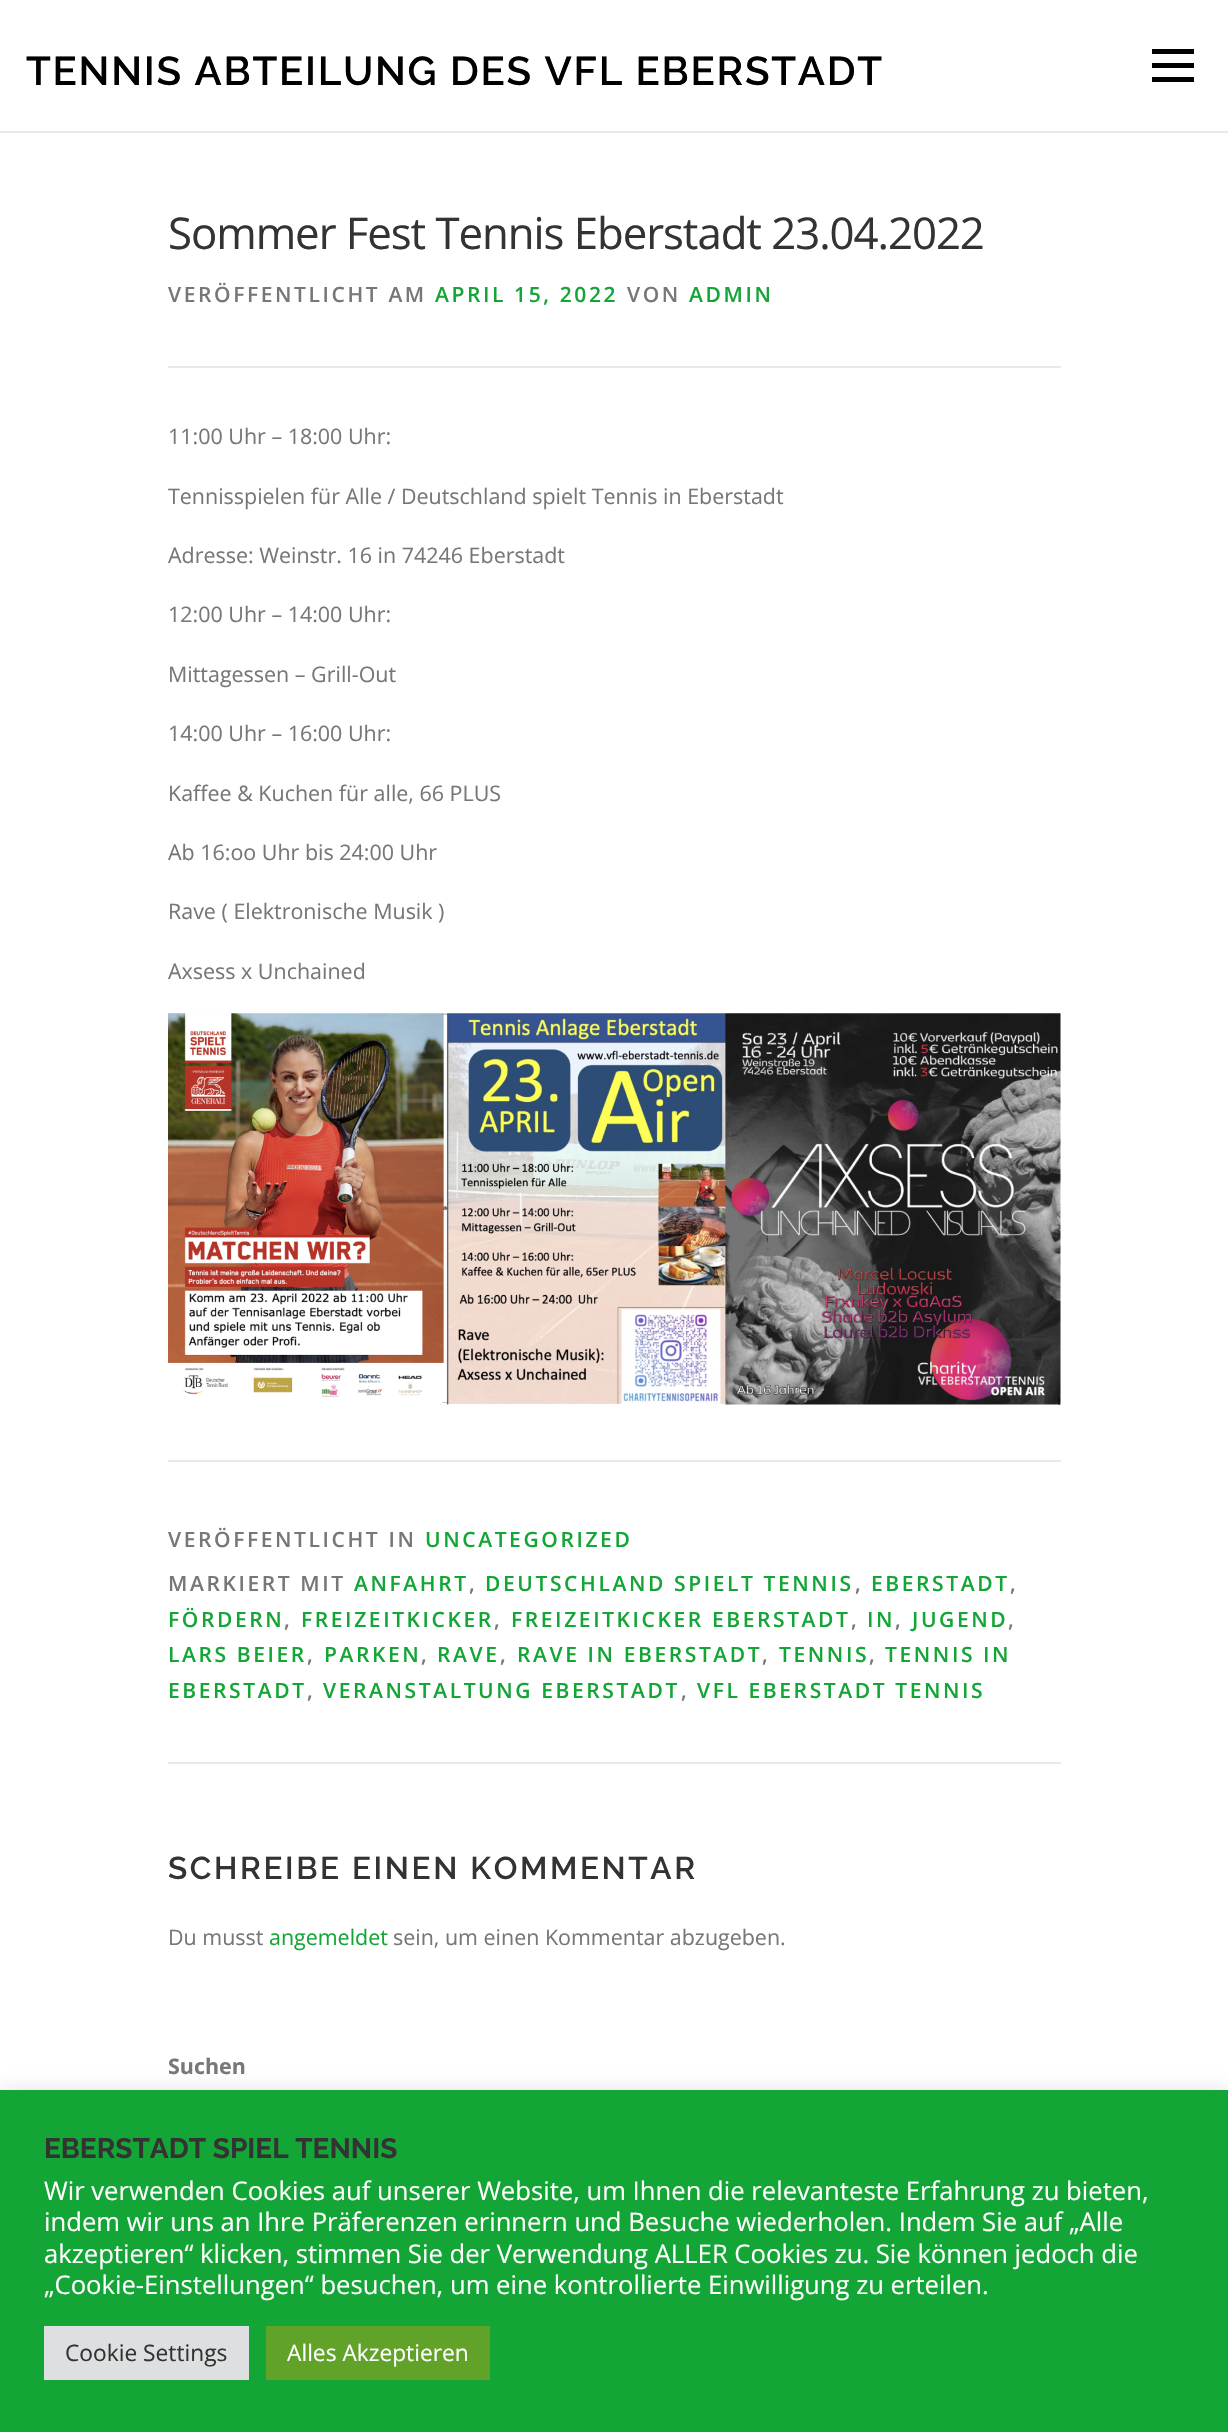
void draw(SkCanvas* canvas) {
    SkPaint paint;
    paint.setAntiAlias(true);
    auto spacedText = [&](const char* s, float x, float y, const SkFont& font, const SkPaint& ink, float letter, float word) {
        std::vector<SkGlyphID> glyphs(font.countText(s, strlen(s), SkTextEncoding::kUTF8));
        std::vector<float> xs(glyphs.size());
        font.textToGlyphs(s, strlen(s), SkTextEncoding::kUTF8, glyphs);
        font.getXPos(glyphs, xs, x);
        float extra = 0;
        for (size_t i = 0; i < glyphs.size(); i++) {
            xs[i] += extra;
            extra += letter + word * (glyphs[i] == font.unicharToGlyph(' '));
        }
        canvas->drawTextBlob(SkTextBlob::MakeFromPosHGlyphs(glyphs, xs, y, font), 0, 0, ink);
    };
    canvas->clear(0xFFFFFFFF);
    SkFont font1(fontMgr->matchFamilyStyle("Raleway", SkFontStyle(600, SkFontStyle::kNormal_Width, SkFontStyle::kUpright_Slant)), 40.25f);
    font1.setSubpixel(true);
    paint.setColor(0xFF000000);
    spacedText("TENNIS ABTEILUNG DES VFL EBERSTADT", 26, 85, font1, paint, 1.75f, 0);
    canvas->drawRect(SkRect::MakeXYWH(1152, 63, 42, 5), paint);
    canvas->drawRect(SkRect::MakeXYWH(1152, 49, 42, 5), paint);
    canvas->drawRect(SkRect::MakeXYWH(1152, 77, 42, 5), paint);
    paint.setColor(0xFFE9E9E9);
    canvas->drawRect(SkRect::MakeXYWH(0, 131, 1228, 2), paint);
    SkFont font2(fontMgr->matchFamilyStyle("Open Sans", SkFontStyle::Normal()), 43.75f);
    font2.setSubpixel(true);
    paint.setColor(0xFF333333);
    spacedText("Sommer Fest Tennis Eberstadt 23.04.2022", 168, 249, font2, paint, -1.05f, 0);
    paint.setColor(0xFFE9E9E9);
    canvas->drawRect(SkRect::MakeXYWH(168, 366, 893, 2), paint);
    SkFont font3(fontMgr->matchFamilyStyle("Open Sans", SkFontStyle(600, SkFontStyle::kNormal_Width, SkFontStyle::kUpright_Slant)), 21);
    font3.setSubpixel(true);
    paint.setColor(0xFF777777);
    spacedText("VERÖFFENTLICHT AM", 168, 302, font3, paint, 2.6f, 0);
    paint.setColor(0xFF14A537);
    spacedText("APRIL 15, 2022", 435, 302, font3, paint, 2.6f, 0);
    paint.setColor(0xFF777777);
    spacedText("VON", 627, 302, font3, paint, 2.6f, 0);
    paint.setColor(0xFF14A537);
    spacedText("ADMIN", 689, 302, font3, paint, 2.6f, 0);
    SkFont font4(fontMgr->matchFamilyStyle("Open Sans", SkFontStyle::Normal()), 21.45f);
    font4.setSubpixel(true);
    paint.setColor(0xFF777777);
    canvas->drawString("11:00 Uhr – 18:00 Uhr:", 168, 444, font4, paint);
    canvas->drawString("Tennisspielen für Alle / Deutschland spielt Tennis in Eberstadt", 168, 504, font4, paint);
    canvas->drawString("Adresse: Weinstr. 16 in 74246 Eberstadt", 168, 563, font4, paint);
    canvas->drawString("12:00 Uhr – 14:00 Uhr:", 168, 622, font4, paint);
    canvas->drawString("Mittagessen – Grill-Out", 168, 682, font4, paint);
    canvas->drawString("14:00 Uhr – 16:00 Uhr:", 168, 741, font4, paint);
    canvas->drawString("Kaffee & Kuchen für alle, 66 PLUS", 168, 801, font4, paint);
    canvas->drawString("Ab 16:oo Uhr bis 24:00 Uhr", 168, 860, font4, paint);
    canvas->drawString("Rave ( Elektronische Musik )", 168, 919, font4, paint);
    canvas->drawString("Axsess x Unchained", 168, 979, font4, paint);
    canvas->drawImageRect(SkImages::DeferredFromEncodedData(SkData::MakeFromFileName("img1.png")), SkRect::MakeXYWH(168, 1013, 893, 393), SkSamplingOptions());
    paint.setColor(0xFFE9E9E9);
    canvas->drawRect(SkRect::MakeXYWH(168, 1460, 893, 2), paint);
    paint.setColor(0xFF777777);
    spacedText("VERÖFFENTLICHT IN", 168, 1547, font3, paint, 2.6f, 0);
    paint.setColor(0xFF14A537);
    spacedText("UNCATEGORIZED", 425, 1547, font3, paint, 2.6f, 0);
    paint.setColor(0xFF777777);
    spacedText("MARKIERT MIT", 168, 1591, font3, paint, 2.6f, 0);
    paint.setColor(0xFF14A537);
    spacedText("ANFAHRT", 354, 1591, font3, paint, 2.6f, 0);
    paint.setColor(0xFF777777);
    spacedText(",", 469, 1591, font3, paint, 2.6f, 0);
    paint.setColor(0xFF14A537);
    spacedText("DEUTSCHLAND SPIELT TENNIS", 485, 1591, font3, paint, 2.6f, 0);
    paint.setColor(0xFF777777);
    spacedText(",", 855, 1591, font3, paint, 2.6f, 0);
    paint.setColor(0xFF14A537);
    spacedText("EBERSTADT", 871, 1591, font3, paint, 2.6f, 0);
    paint.setColor(0xFF777777);
    spacedText(",", 1010, 1591, font3, paint, 2.6f, 0);
    paint.setColor(0xFF14A537);
    spacedText("FÖRDERN", 168, 1627, font3, paint, 2.6f, 0);
    paint.setColor(0xFF777777);
    spacedText(",", 284, 1627, font3, paint, 2.6f, 0);
    paint.setColor(0xFF14A537);
    spacedText("FREIZEITKICKER", 301, 1627, font3, paint, 2.6f, 0);
    paint.setColor(0xFF777777);
    spacedText(",", 494, 1627, font3, paint, 2.6f, 0);
    paint.setColor(0xFF14A537);
    spacedText("FREIZEITKICKER EBERSTADT", 511, 1627, font3, paint, 2.6f, 0);
    paint.setColor(0xFF777777);
    spacedText(",", 851, 1627, font3, paint, 2.6f, 0);
    paint.setColor(0xFF14A537);
    spacedText("IN", 867, 1627, font3, paint, 2.6f, 0);
    paint.setColor(0xFF777777);
    spacedText(",", 895, 1627, font3, paint, 2.6f, 0);
    paint.setColor(0xFF14A537);
    spacedText("JUGEND", 912, 1627, font3, paint, 2.6f, 0);
    paint.setColor(0xFF777777);
    spacedText(",", 1008, 1627, font3, paint, 2.6f, 0);
    paint.setColor(0xFF14A537);
    spacedText("LARS BEIER", 168, 1662, font3, paint, 2.6f, 0);
    paint.setColor(0xFF777777);
    spacedText(",", 307, 1662, font3, paint, 2.6f, 0);
    paint.setColor(0xFF14A537);
    spacedText("PARKEN", 324, 1662, font3, paint, 2.6f, 0);
    paint.setColor(0xFF777777);
    spacedText(",", 421, 1662, font3, paint, 2.6f, 0);
    paint.setColor(0xFF14A537);
    spacedText("RAVE", 437, 1662, font3, paint, 2.6f, 0);
    paint.setColor(0xFF777777);
    spacedText(",", 500, 1662, font3, paint, 2.6f, 0);
    paint.setColor(0xFF14A537);
    spacedText("RAVE IN EBERSTADT", 517, 1662, font3, paint, 2.6f, 0);
    paint.setColor(0xFF777777);
    spacedText(",", 762, 1662, font3, paint, 2.6f, 0);
    paint.setColor(0xFF14A537);
    spacedText("TENNIS", 779, 1662, font3, paint, 2.6f, 0);
    paint.setColor(0xFF777777);
    spacedText(",", 869, 1662, font3, paint, 2.6f, 0);
    paint.setColor(0xFF14A537);
    spacedText("TENNIS IN", 885, 1662, font3, paint, 2.6f, 0);
    spacedText("EBERSTADT", 168, 1698, font3, paint, 2.6f, 0);
    paint.setColor(0xFF777777);
    spacedText(",", 307, 1698, font3, paint, 2.6f, 0);
    paint.setColor(0xFF14A537);
    spacedText("VERANSTALTUNG EBERSTADT", 323, 1698, font3, paint, 2.6f, 0);
    paint.setColor(0xFF777777);
    spacedText(",", 681, 1698, font3, paint, 2.6f, 0);
    paint.setColor(0xFF14A537);
    spacedText("VFL EBERSTADT TENNIS", 697, 1698, font3, paint, 2.6f, 0);
    paint.setColor(0xFFE9E9E9);
    canvas->drawRect(SkRect::MakeXYWH(168, 1762, 893, 2), paint);
    SkFont font5(fontMgr->matchFamilyStyle("Raleway", SkFontStyle(600, SkFontStyle::kNormal_Width, SkFontStyle::kUpright_Slant)), 31.5f);
    font5.setSubpixel(true);
    paint.setColor(0xFF333333);
    spacedText("SCHREIBE EINEN KOMMENTAR", 168, 1879, font5, paint, 2.6f, 0);
    paint.setColor(0xFF777777);
    canvas->drawString("Du musst", 168, 1945, font4, paint);
    paint.setColor(0xFF14A537);
    canvas->drawString("angemeldet", 269, 1945, font4, paint);
    paint.setColor(0xFF777777);
    canvas->drawString("sein, um einen Kommentar abzugeben.", 393, 1945, font4, paint);
    SkFont font6(fontMgr->matchFamilyStyle("Open Sans", SkFontStyle::Bold()), 21.45f);
    font6.setSubpixel(true);
    canvas->drawString("Suchen", 168, 2074, font6, paint);
    paint.setColor(0x4DACABAB);
    paint.setMaskFilter(SkMaskFilter::MakeBlur(kNormal_SkBlurStyle, 9));
    canvas->drawRect(SkRect::MakeXYWH(0, 2088, 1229, 343), paint);
    paint.setMaskFilter(nullptr);
    paint.setColor(0xFF14A537);
    canvas->drawRect(SkRect::MakeXYWH(0, 2090, 1228, 342), paint);
    SkFont font7(fontMgr->matchFamilyStyle("Raleway", SkFontStyle::Bold()), 28);
    font7.setSubpixel(true);
    paint.setColor(0xFF333333);
    canvas->drawString("EBERSTADT SPIEL TENNIS", 44, 2158, font7, paint);
    SkFont font8(fontMgr->matchFamilyStyle("Open Sans", SkFontStyle::Normal()), 25.65f);
    font8.setSubpixel(true);
    paint.setColor(0xFFFFFFFF);
    canvas->drawString("Wir verwenden Cookies auf unserer Website, um Ihnen die relevanteste Erfahrung zu bieten,", 44, 2200, font8, paint);
    canvas->drawString("indem wir uns an Ihre Präferenzen erinnern und Besuche wiederholen. Indem Sie auf „Alle", 44, 2231, font8, paint);
    canvas->drawString("akzeptieren“ klicken, stimmen Sie der Verwendung ALLER Cookies zu. Sie können jedoch die", 44, 2263, font8, paint);
    canvas->drawString("„Cookie-Einstellungen“ besuchen, um eine kontrollierte Einwilligung zu erteilen.", 44, 2294, font8, paint);
    paint.setColor(0xFFDEDFE0);
    canvas->drawRect(SkRect::MakeXYWH(44, 2326, 205, 54), paint);
    SkFont font9(fontMgr->matchFamilyStyle("Open Sans", SkFontStyle::Normal()), 22.75f);
    font9.setSubpixel(true);
    paint.setColor(0xFF333333);
    canvas->drawString("Cookie Settings", 65, 2361, font9, paint);
    paint.setColor(0xFF61A229);
    canvas->drawRect(SkRect::MakeXYWH(266, 2326, 224, 54), paint);
    paint.setColor(0xFFFFFFFF);
    canvas->drawString("Alles Akzeptieren", 287, 2361, font9, paint);
}
